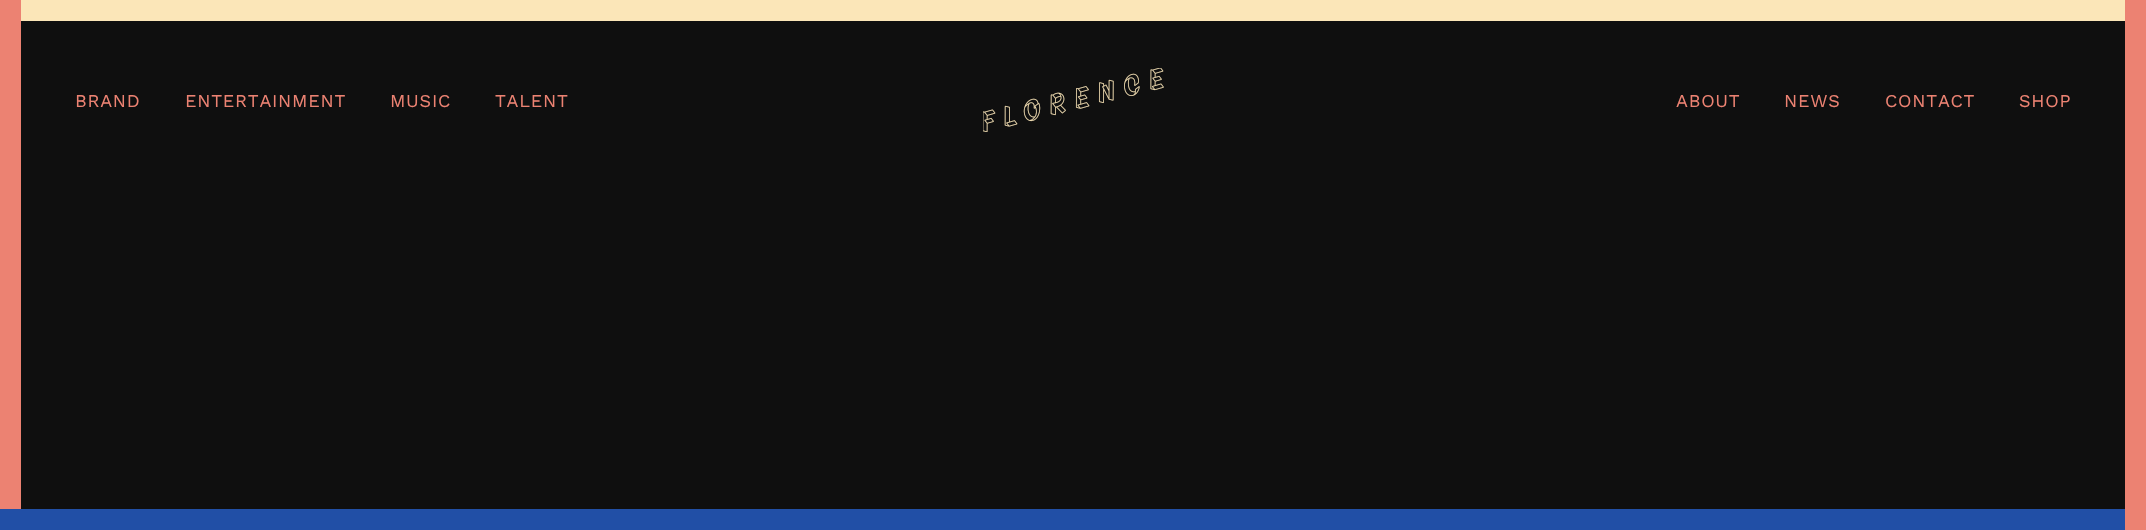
void draw(SkCanvas* canvas) {
    SkPaint paint;
    paint.setAntiAlias(true);
    auto spacedText = [&](const char* s, float x, float y, const SkFont& font, const SkPaint& ink, float letter, float word) {
        std::vector<SkGlyphID> glyphs(font.countText(s, strlen(s), SkTextEncoding::kUTF8));
        std::vector<float> xs(glyphs.size());
        font.textToGlyphs(s, strlen(s), SkTextEncoding::kUTF8, glyphs);
        font.getXPos(glyphs, xs, x);
        float extra = 0;
        for (size_t i = 0; i < glyphs.size(); i++) {
            xs[i] += extra;
            extra += letter + word * (glyphs[i] == font.unicharToGlyph(' '));
        }
        canvas->drawTextBlob(SkTextBlob::MakeFromPosHGlyphs(glyphs, xs, y, font), 0, 0, ink);
    };
    canvas->clear(0xFF0F0F0F);
    paint.setColor(0xFFEC8272);
    canvas->drawRect(SkRect::MakeXYWH(0, 0, 21, 509), paint);
    paint.setColor(0xFFFBE6B8);
    canvas->drawRect(SkRect::MakeXYWH(21, 0, 2104, 21), paint);
    paint.setColor(0xFFEC8272);
    canvas->drawRect(SkRect::MakeXYWH(2125, 0, 21, 530), paint);
    SkFont font1(fontMgr->matchFamilyStyle("Work Sans", SkFontStyle::Normal()), 18);
    font1.setSubpixel(true);
    spacedText("BRAND", 75, 107, font1, paint, 0.75f, 0);
    spacedText("ENTERTAINMENT", 185, 107, font1, paint, 0.75f, 0);
    spacedText("MUSIC", 390, 107, font1, paint, 0.75f, 0);
    spacedText("TALENT", 495, 107, font1, paint, 0.75f, 0);
    canvas->drawImageRect(SkImages::DeferredFromEncodedData(SkData::MakeFromFileName("img1.png")), SkRect::MakeXYWH(983, 68, 181, 64), SkSamplingOptions());
    spacedText("ABOUT", 1676, 107, font1, paint, 0.75f, 0);
    spacedText("NEWS", 1784, 107, font1, paint, 0.75f, 0);
    spacedText("CONTACT", 1885, 107, font1, paint, 0.75f, 0);
    spacedText("SHOP", 2019, 107, font1, paint, 0.75f, 0);
    paint.setColor(0xFF214FA6);
    canvas->drawRect(SkRect::MakeXYWH(0, 509, 2125, 21), paint);
}
